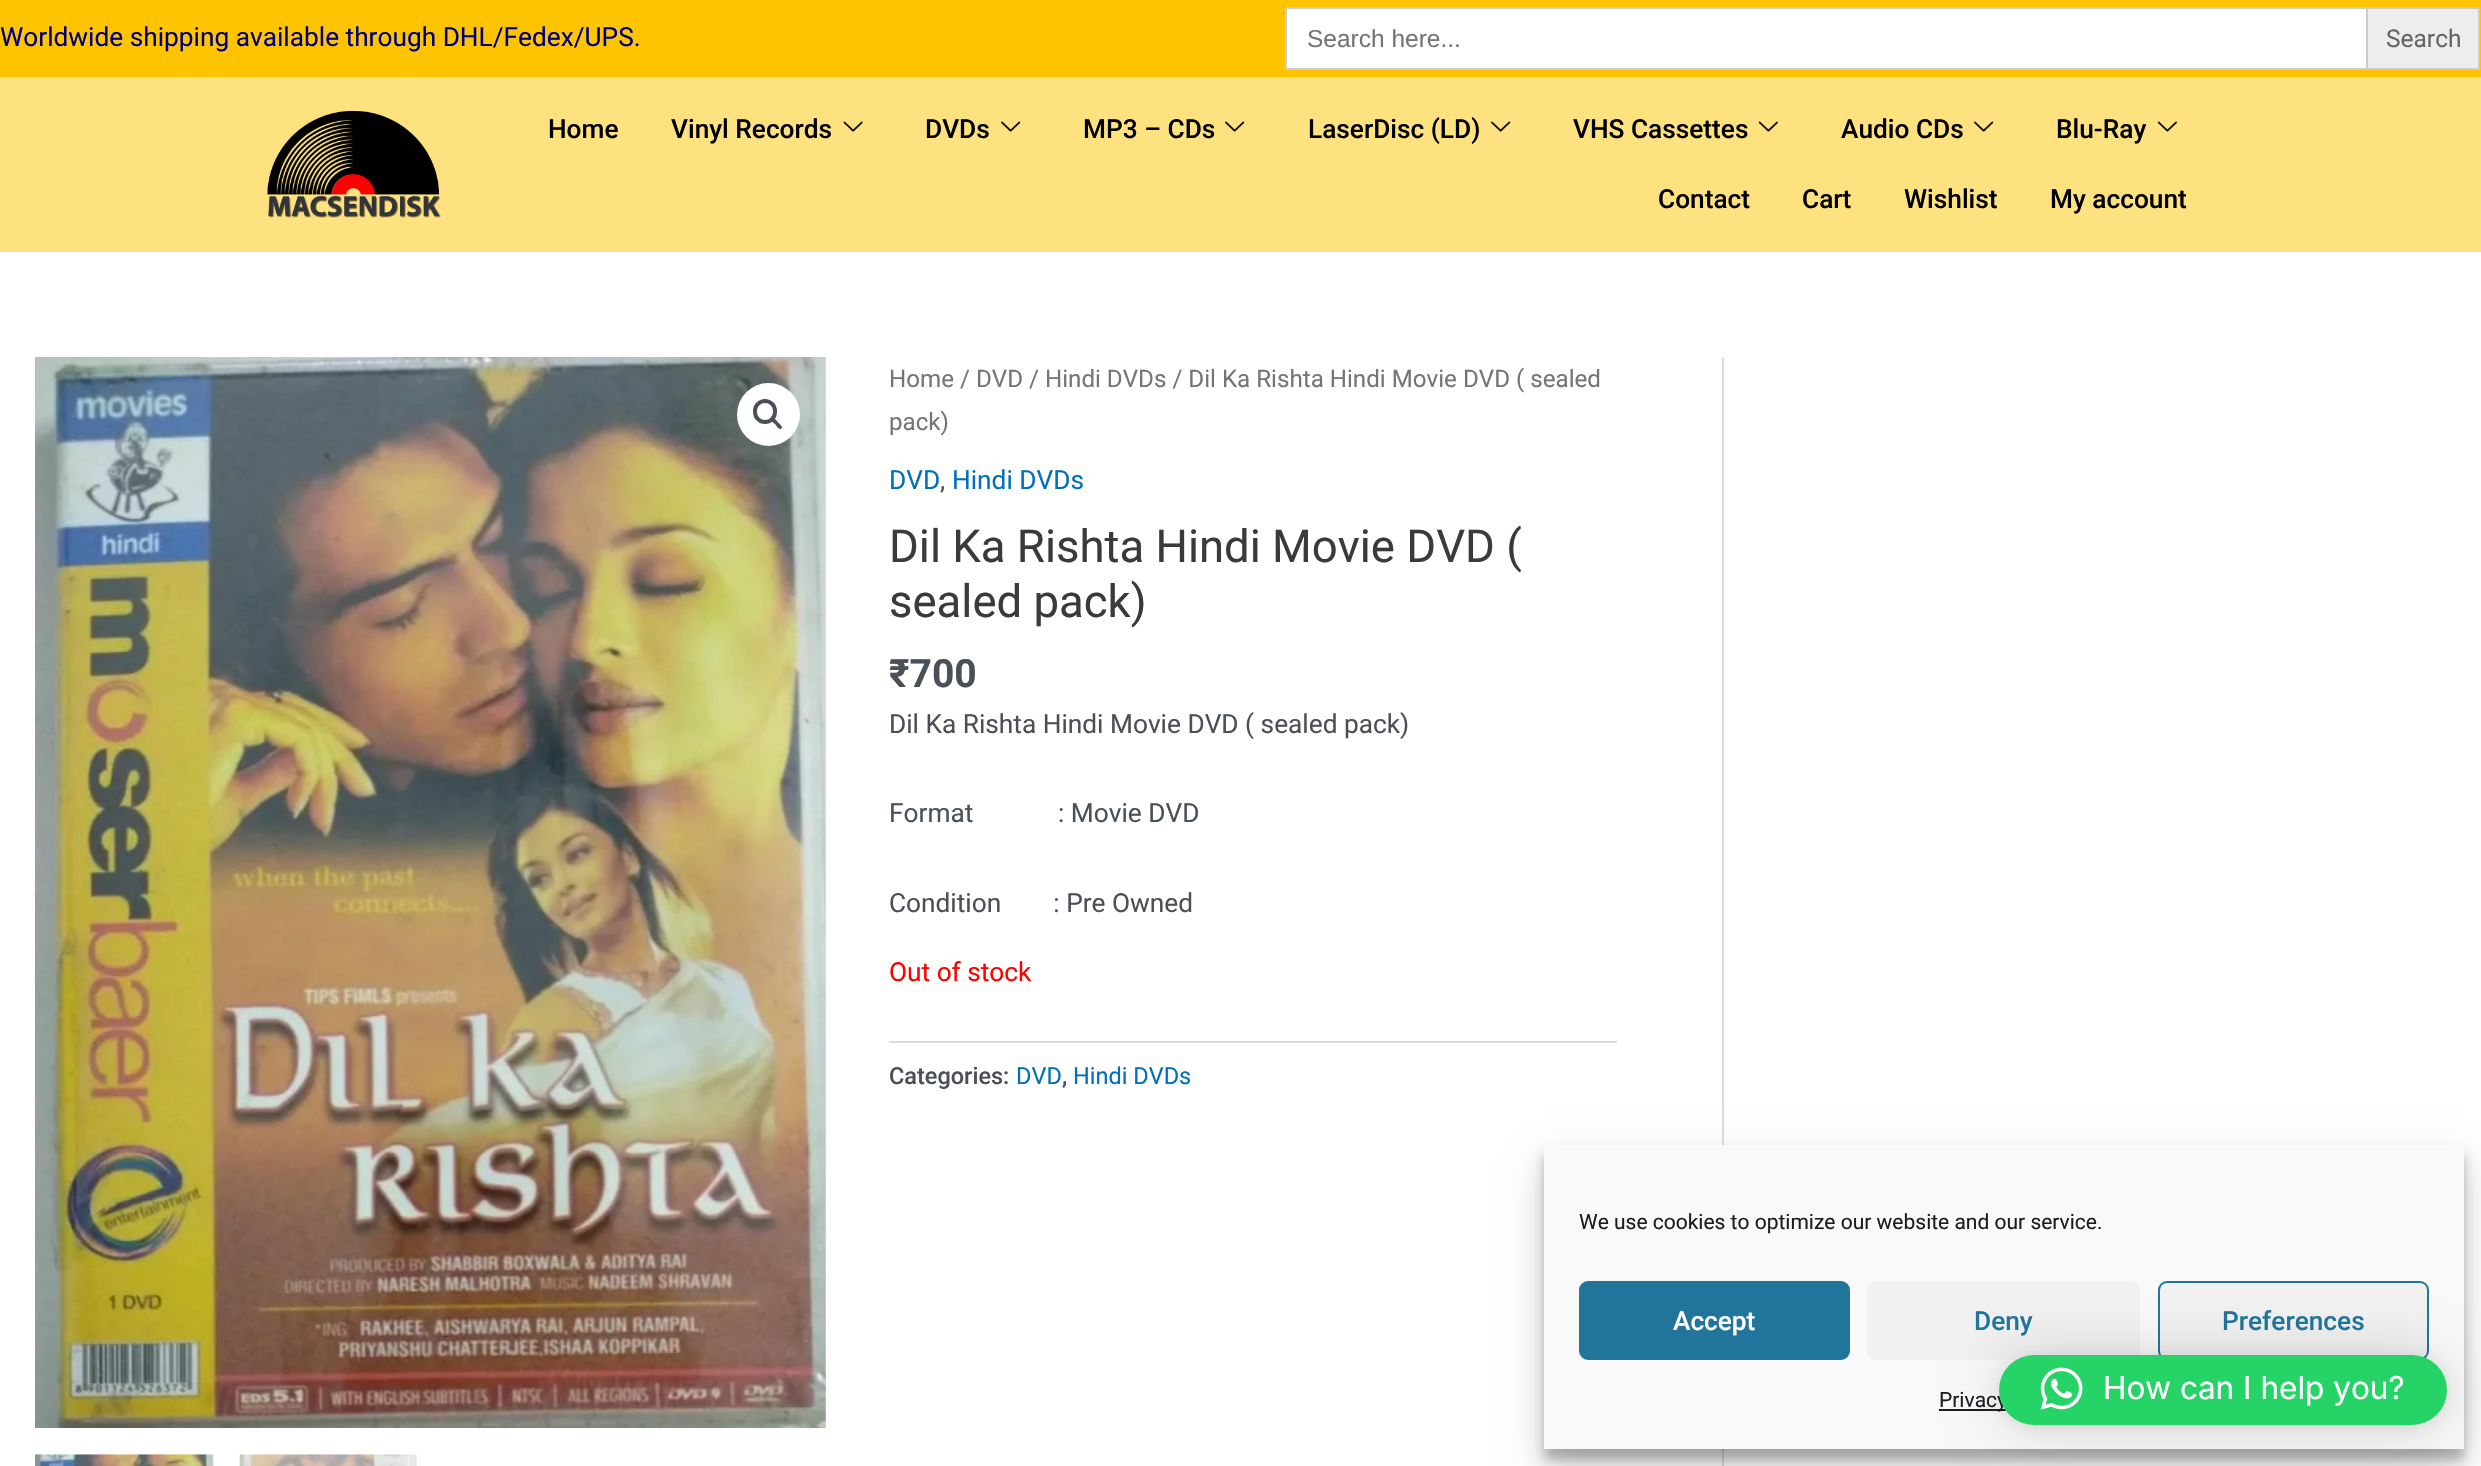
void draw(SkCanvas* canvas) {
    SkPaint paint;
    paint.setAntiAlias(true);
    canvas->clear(0xFFFFFFFF);
    paint.setColor(0xFFFFC400);
    canvas->drawRect(SkRect::MakeXYWH(0, 0, 2481, 77), paint);
    SkFont font1(fontMgr->matchFamilyStyle("Roboto", SkFontStyle::Normal()), 26.25f);
    font1.setSubpixel(true);
    paint.setColor(0xFF000080);
    canvas->drawString("Worldwide shipping available through DHL/Fedex/UPS.", 0, 46, font1, paint);
    paint.setColor(0xFFFFFFFF);
    canvas->drawRect(SkRect::MakeXYWH(1287, 9, 1079, 59), paint);
    paint.setStyle(SkPaint::kStroke_Style);
    paint.setStrokeWidth(2);
    paint.setColor(0xFFCCCCCC);
    canvas->drawRect(SkRect::MakeXYWH(1286, 8, 1193, 61), paint);
    SkFont font2(fontMgr->matchFamilyStyle("Liberation Sans", SkFontStyle::Normal()), 24.5f);
    font2.setSubpixel(true);
    paint.setStyle(SkPaint::kFill_Style);
    paint.setColor(0xFF757575);
    canvas->drawString("Search here...", 1307, 47, font2, paint);
    paint.setColor(0xFFEDEDED);
    canvas->drawRect(SkRect::MakeXYWH(2367, 8, 112, 61), paint);
    paint.setStyle(SkPaint::kStroke_Style);
    paint.setColor(0xFFCCCCCC);
    canvas->drawRect(SkRect::MakeXYWH(2367, 8, 112, 61), paint);
    SkFont font3(fontMgr->matchFamilyStyle("Roboto", SkFontStyle::Normal()), 24.5f);
    font3.setSubpixel(true);
    paint.setStyle(SkPaint::kFill_Style);
    paint.setColor(0xFF666666);
    canvas->drawString("Search", 2386, 47, font3, paint);
    paint.setColor(0xFFFFE280);
    canvas->drawRect(SkRect::MakeXYWH(0, 77, 2481, 175), paint);
    canvas->drawImageRect(SkImages::DeferredFromEncodedData(SkData::MakeFromFileName("img1.png")), SkRect::MakeXYWH(267, 111, 174, 107), SkSamplingOptions());
    SkFont font4(fontMgr->matchFamilyStyle("Roboto", SkFontStyle(500, SkFontStyle::kNormal_Width, SkFontStyle::kUpright_Slant)), 26.25f);
    font4.setSubpixel(true);
    paint.setColor(0xFF000000);
    canvas->drawString("Home", 548, 138, font4, paint);
    canvas->drawString("Vinyl Records", 671, 138, font4, paint);
    canvas->drawImageRect(SkImages::DeferredFromEncodedData(SkData::MakeFromFileName("img2.png")), SkRect::MakeXYWH(843, 121, 20, 11), SkSamplingOptions());
    canvas->drawString("DVDs", 925, 138, font4, paint);
    canvas->drawImageRect(SkImages::DeferredFromEncodedData(SkData::MakeFromFileName("img3.png")), SkRect::MakeXYWH(1001, 121, 20, 11), SkSamplingOptions());
    canvas->drawString("MP3 – CDs", 1083, 138, font4, paint);
    canvas->drawImageRect(SkImages::DeferredFromEncodedData(SkData::MakeFromFileName("img3.png")), SkRect::MakeXYWH(1225, 121, 20, 11), SkSamplingOptions());
    canvas->drawString("LaserDisc (LD)", 1308, 138, font4, paint);
    canvas->drawImageRect(SkImages::DeferredFromEncodedData(SkData::MakeFromFileName("img3.png")), SkRect::MakeXYWH(1491, 121, 20, 11), SkSamplingOptions());
    canvas->drawString("VHS Cassettes", 1573, 138, font4, paint);
    canvas->drawImageRect(SkImages::DeferredFromEncodedData(SkData::MakeFromFileName("img4.png")), SkRect::MakeXYWH(1758, 121, 20, 11), SkSamplingOptions());
    canvas->drawString("Audio CDs", 1841, 138, font4, paint);
    canvas->drawImageRect(SkImages::DeferredFromEncodedData(SkData::MakeFromFileName("img3.png")), SkRect::MakeXYWH(1974, 121, 20, 11), SkSamplingOptions());
    canvas->drawString("Blu-Ray", 2056, 138, font4, paint);
    canvas->drawImageRect(SkImages::DeferredFromEncodedData(SkData::MakeFromFileName("img4.png")), SkRect::MakeXYWH(2157, 121, 20, 11), SkSamplingOptions());
    canvas->drawString("Contact", 1658, 208, font4, paint);
    canvas->drawString("Cart", 1802, 208, font4, paint);
    canvas->drawString("Wishlist", 1904, 208, font4, paint);
    canvas->drawString("My account", 2050, 208, font4, paint);
    paint.setColor(0xFFDDDDDD);
    canvas->drawRect(SkRect::MakeXYWH(1722, 357, 2, 1109), paint);
    canvas->drawImageRect(SkImages::DeferredFromEncodedData(SkData::MakeFromFileName("img6.png")), SkRect::MakeXYWH(825, 357, 1, 1071), SkSamplingOptions());
    canvas->drawImageRect(SkImages::DeferredFromEncodedData(SkData::MakeFromFileName("img5.png")), SkRect::MakeXYWH(35, 357, 791, 1071), SkSamplingOptions());
    paint.setColor(0xFFFFFFFF);
    canvas->drawCircle(768.5f, 414.5f, 31.5f, paint);
    paint.setStyle(SkPaint::kStroke_Style);
    paint.setStrokeWidth(4);
    paint.setColor(0xFF4B4F58);
    canvas->drawRoundRect(SkRect::MakeXYWH(755, 401, 20, 21), 10, 10, paint);
    paint.setStyle(SkPaint::kFill_Style);
    canvas->drawPath(SkPathBuilder().moveTo(771.5f, 418.5f).cubicTo(773.5f, 416.5f, 777, 421, 778, 422.5f).cubicTo(779, 423.5f, 783.5f, 426.5f, 781.5f, 428.5f).cubicTo(779.5f, 430.5f, 776.5f, 426, 775.5f, 424.5f).cubicTo(774.5f, 423.5f, 769.5f, 420.5f, 771.5f, 418.5f).close().detach(), paint);
    canvas->drawImageRect(SkImages::DeferredFromEncodedData(SkData::MakeFromFileName("img7.png")), SkRect::MakeXYWH(35, 1454, 179, 12), SkSamplingOptions());
    canvas->drawImageRect(SkImages::DeferredFromEncodedData(SkData::MakeFromFileName("img8.png")), SkRect::MakeXYWH(239, 1454, 178, 12), SkSamplingOptions());
    SkFont font5(fontMgr->matchFamilyStyle("Roboto", SkFontStyle::Normal()), 24.15f);
    font5.setSubpixel(true);
    paint.setColor(0xFF757575);
    canvas->drawString("Home / DVD / Hindi DVDs / Dil Ka Rishta Hindi Movie DVD ( sealed", 889, 387, font5, paint);
    canvas->drawString("pack)", 889, 430, font5, paint);
    paint.setColor(0xFF0170B9);
    canvas->drawString("DVD", 889, 489, font1, paint);
    paint.setColor(0xFF4B4F58);
    canvas->drawString(",", 940, 489, font1, paint);
    paint.setColor(0xFF0170B9);
    canvas->drawString("Hindi DVDs", 952, 489, font1, paint);
    SkFont font6(fontMgr->matchFamilyStyle("Roboto", SkFontStyle::Normal()), 45.5f);
    font6.setSubpixel(true);
    paint.setColor(0xFF3A3A3A);
    canvas->drawString("Dil Ka Rishta Hindi Movie DVD (", 889, 562, font6, paint);
    canvas->drawString("sealed pack)", 889, 617, font6, paint);
    SkFont font7(fontMgr->matchFamilyStyle("Roboto", SkFontStyle::Bold()), 39);
    font7.setSubpixel(true);
    paint.setColor(0xFF4B4F58);
    canvas->drawString("₹700", 889, 687, font7, paint);
    canvas->drawString("Dil Ka Rishta Hindi Movie DVD ( sealed pack)", 889, 733, font1, paint);
    canvas->drawString("Format             : Movie DVD", 889, 822, font1, paint);
    canvas->drawString("Condition        : Pre Owned", 889, 912, font1, paint);
    paint.setColor(0xFFFF0000);
    canvas->drawString("Out of stock", 889, 981, font1, paint);
    paint.setColor(0xFFDDDDDD);
    canvas->drawRect(SkRect::MakeXYWH(889, 1041, 728, 2), paint);
    SkFont font8(fontMgr->matchFamilyStyle("Roboto", SkFontStyle(500, SkFontStyle::kNormal_Width, SkFontStyle::kUpright_Slant)), 23.5f);
    font8.setSubpixel(true);
    paint.setColor(0xFF4B4F58);
    canvas->drawString("Categories:", 889, 1084, font8, paint);
    SkFont font9(fontMgr->matchFamilyStyle("Roboto", SkFontStyle::Normal()), 23.5f);
    font9.setSubpixel(true);
    paint.setColor(0xFF0170B9);
    canvas->drawString("DVD", 1016, 1084, font9, paint);
    paint.setColor(0xFF4B4F58);
    canvas->drawString(",", 1062, 1084, font8, paint);
    paint.setColor(0xFF0170B9);
    canvas->drawString("Hindi DVDs", 1073, 1084, font9, paint);
    paint.setColor(0x3B000000);
    paint.setMaskFilter(SkMaskFilter::MakeBlur(kNormal_SkBlurStyle, 5));
    canvas->drawRect(SkRect::MakeXYWH(1544, 1155, 920, 305), paint);
    paint.setMaskFilter(nullptr);
    paint.setColor(0x30000000);
    paint.setMaskFilter(SkMaskFilter::MakeBlur(kNormal_SkBlurStyle, 17.5f));
    canvas->drawRect(SkRect::MakeXYWH(1544, 1162, 920, 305), paint);
    paint.setMaskFilter(nullptr);
    paint.setColor(0xFFF9F9F9);
    canvas->drawRect(SkRect::MakeXYWH(1544, 1145, 920, 304), paint);
    SkFont font10(fontMgr->matchFamilyStyle("Roboto", SkFontStyle::Normal()), 21);
    font10.setSubpixel(true);
    paint.setColor(0xFF191E23);
    canvas->drawString("We use cookies to optimize our website and our service.", 1579, 1229, font10, paint);
    paint.setColor(0xFF21759B);
    canvas->drawRoundRect(SkRect::MakeXYWH(1580, 1282, 269, 77), 8, 8, paint);
    paint.setStyle(SkPaint::kStroke_Style);
    paint.setStrokeWidth(2);
    canvas->drawRoundRect(SkRect::MakeXYWH(1580, 1282, 269, 77), 8, 8, paint);
    paint.setStyle(SkPaint::kFill_Style);
    paint.setColor(0xFFFFFFFF);
    canvas->drawString("Accept", 1673, 1330, font4, paint);
    paint.setColor(0xFFF1F1F1);
    canvas->drawRoundRect(SkRect::MakeXYWH(1867, 1281, 273, 79), 9, 9, paint);
    paint.setColor(0xFF21759B);
    canvas->drawString("Deny", 1974, 1330, font4, paint);
    paint.setColor(0xFFF1F1F1);
    canvas->drawRoundRect(SkRect::MakeXYWH(2159, 1282, 269, 77), 8, 8, paint);
    paint.setStyle(SkPaint::kStroke_Style);
    paint.setColor(0xFF21759B);
    canvas->drawRoundRect(SkRect::MakeXYWH(2159, 1282, 269, 77), 8, 8, paint);
    paint.setStyle(SkPaint::kFill_Style);
    canvas->drawString("Preferences", 2222, 1330, font4, paint);
    paint.setColor(0xFF191E23);
    canvas->drawRect(SkRect::MakeXYWH(1939, 1409, 67, 2), paint);
    canvas->drawString("Privacy", 1939, 1407, font10, paint);
    paint.setColor(0x29000000);
    paint.setMaskFilter(SkMaskFilter::MakeBlur(kNormal_SkBlurStyle, 28));
    canvas->drawRoundRect(SkRect::MakeXYWH(1999, 1358, 448, 70), 35, 35, paint);
    paint.setMaskFilter(nullptr);
    paint.setColor(0x0F000000);
    paint.setMaskFilter(SkMaskFilter::MakeBlur(kNormal_SkBlurStyle, 5));
    canvas->drawRoundRect(SkRect::MakeXYWH(1999, 1356, 448, 70), 35, 35, paint);
    paint.setMaskFilter(nullptr);
    paint.setColor(0xFF25D366);
    canvas->drawRoundRect(SkRect::MakeXYWH(1999, 1355, 448, 70), 35, 35, paint);
    canvas->drawImageRect(SkImages::DeferredFromEncodedData(SkData::MakeFromFileName("img9.png")), SkRect::MakeXYWH(2040, 1367, 43, 43), SkSamplingOptions());
    SkFont font11(fontMgr->matchFamilyStyle("Inter", SkFontStyle::Normal()), 31.5f);
    font11.setSubpixel(true);
    paint.setColor(0xFFFFFFFF);
    canvas->drawString("How can I help you?", 2103, 1399, font11, paint);
}
